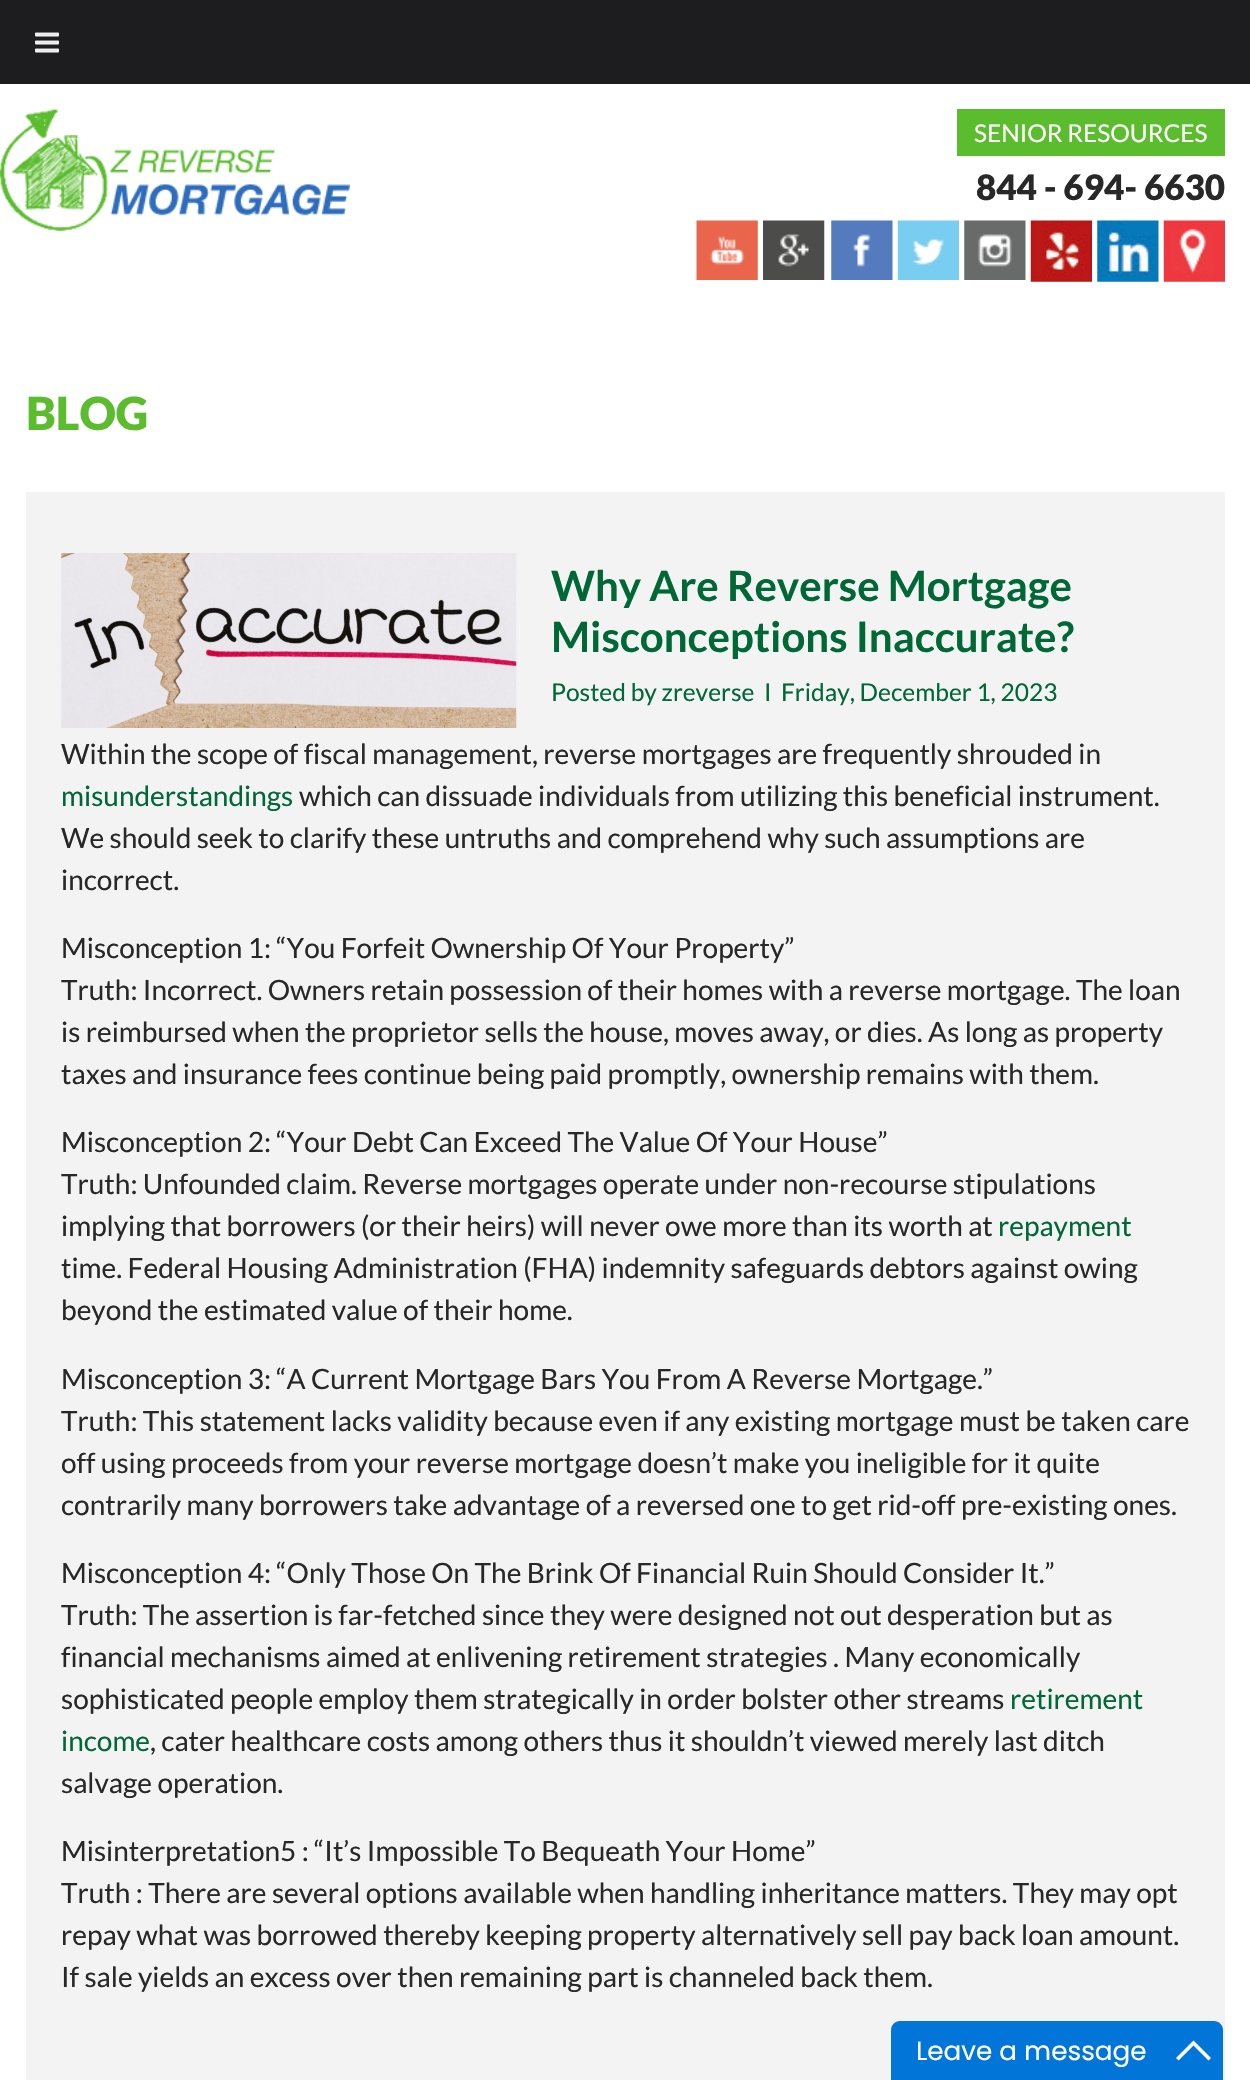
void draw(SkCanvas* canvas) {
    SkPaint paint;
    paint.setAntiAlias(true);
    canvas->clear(0xFFFFFFFF);
    paint.setColor(0xFF1D1D20);
    canvas->drawRect(SkRect::MakeXYWH(0, 0, 1250, 84), paint);
    canvas->drawImageRect(SkImages::DeferredFromEncodedData(SkData::MakeFromFileName("img1.png")), SkRect::MakeXYWH(35, 32, 24, 21), SkSamplingOptions());
    canvas->drawImageRect(SkImages::DeferredFromEncodedData(SkData::MakeFromFileName("img2.png")), SkRect::MakeXYWH(0, 108, 350, 123), SkSamplingOptions());
    paint.setColor(0xFF5BBC2E);
    canvas->drawRect(SkRect::MakeXYWH(957, 109, 268, 47), paint);
    SkFont font1(fontMgr->matchFamilyStyle("Lato", SkFontStyle::Normal()), 24.5f);
    font1.setSubpixel(true);
    paint.setColor(0xFFFFFFFF);
    canvas->drawString("SENIOR RESOURCES", 974, 142, font1, paint);
    SkFont font2(fontMgr->matchFamilyStyle("Lato", SkFontStyle(900, SkFontStyle::kNormal_Width, SkFontStyle::kUpright_Slant)), 35);
    font2.setSubpixel(true);
    paint.setColor(0xFF282828);
    canvas->drawString("844 - 694- 6630", 976, 200, font2, paint);
    canvas->drawImageRect(SkImages::DeferredFromEncodedData(SkData::MakeFromFileName("img3.png")), SkRect::MakeXYWH(696, 220, 62, 60), SkSamplingOptions());
    canvas->drawImageRect(SkImages::DeferredFromEncodedData(SkData::MakeFromFileName("img4.png")), SkRect::MakeXYWH(763, 220, 62, 60), SkSamplingOptions());
    canvas->drawImageRect(SkImages::DeferredFromEncodedData(SkData::MakeFromFileName("img5.png")), SkRect::MakeXYWH(831, 220, 62, 60), SkSamplingOptions());
    canvas->drawImageRect(SkImages::DeferredFromEncodedData(SkData::MakeFromFileName("img6.png")), SkRect::MakeXYWH(897, 220, 62, 60), SkSamplingOptions());
    canvas->drawImageRect(SkImages::DeferredFromEncodedData(SkData::MakeFromFileName("img7.png")), SkRect::MakeXYWH(964, 220, 62, 60), SkSamplingOptions());
    canvas->drawImageRect(SkImages::DeferredFromEncodedData(SkData::MakeFromFileName("img8.png")), SkRect::MakeXYWH(1030, 220, 62, 62), SkSamplingOptions());
    canvas->drawImageRect(SkImages::DeferredFromEncodedData(SkData::MakeFromFileName("img9.png")), SkRect::MakeXYWH(1097, 220, 62, 62), SkSamplingOptions());
    canvas->drawImageRect(SkImages::DeferredFromEncodedData(SkData::MakeFromFileName("img10.png")), SkRect::MakeXYWH(1163, 220, 62, 62), SkSamplingOptions());
    SkFont font3(fontMgr->matchFamilyStyle("Lato", SkFontStyle(900, SkFontStyle::kNormal_Width, SkFontStyle::kUpright_Slant)), 45.5f);
    font3.setSubpixel(true);
    paint.setColor(0xFF5BBC2E);
    canvas->drawString("BLOG", 26, 430, font3, paint);
    paint.setColor(0xFFF3F3F3);
    canvas->drawRect(SkRect::MakeXYWH(26, 492, 1199, 1588), paint);
    canvas->drawImageRect(SkImages::DeferredFromEncodedData(SkData::MakeFromFileName("img11.png")), SkRect::MakeXYWH(61, 553, 456, 175), SkSamplingOptions());
    SkFont font4(fontMgr->matchFamilyStyle("Lato", SkFontStyle::Bold()), 42);
    font4.setSubpixel(true);
    paint.setColor(0xFF006837);
    canvas->drawString("Why Are Reverse Mortgage", 551, 601, font4, paint);
    canvas->drawString("Misconceptions Inaccurate?", 551, 652, font4, paint);
    canvas->drawString("Posted by zreverse", 551, 701, font1, paint);
    canvas->drawString("I", 764, 701, font1, paint);
    canvas->drawString("Friday, December 1, 2023", 781, 701, font1, paint);
    SkFont font5(fontMgr->matchFamilyStyle("Lato", SkFontStyle::Normal()), 28);
    font5.setSubpixel(true);
    paint.setColor(0xFF282828);
    canvas->drawString("Within the scope of fiscal management, reverse mortgages are frequently shrouded in", 61, 764, font5, paint);
    paint.setColor(0xFF006837);
    canvas->drawString("misunderstandings", 61, 806, font5, paint);
    paint.setColor(0xFF282828);
    canvas->drawString("which can dissuade individuals from utilizing this beneficial instrument.", 299, 806, font5, paint);
    canvas->drawString("We should seek to clarify these untruths and comprehend why such assumptions are", 61, 848, font5, paint);
    canvas->drawString("incorrect.", 61, 890, font5, paint);
    canvas->drawString("Misconception 1: “You Forfeit Ownership Of Your Property”", 61, 958, font5, paint);
    canvas->drawString("Truth: Incorrect. Owners retain possession of their homes with a reverse mortgage. The loan", 61, 1000, font5, paint);
    canvas->drawString("is reimbursed when the proprietor sells the house, moves away, or dies. As long as property", 61, 1042, font5, paint);
    canvas->drawString("taxes and insurance fees continue being paid promptly, ownership remains with them.", 61, 1084, font5, paint);
    canvas->drawString("Misconception 2: “Your Debt Can Exceed The Value Of Your House”", 61, 1152, font5, paint);
    canvas->drawString("Truth: Unfounded claim. Reverse mortgages operate under non-recourse stipulations", 61, 1194, font5, paint);
    canvas->drawString("implying that borrowers (or their heirs) will never owe more than its worth at", 61, 1236, font5, paint);
    paint.setColor(0xFF006837);
    canvas->drawString("repayment", 998, 1236, font5, paint);
    paint.setColor(0xFF282828);
    canvas->drawString("time. Federal Housing Administration (FHA) indemnity safeguards debtors against owing", 61, 1278, font5, paint);
    canvas->drawString("beyond the estimated value of their home.", 61, 1320, font5, paint);
    canvas->drawString("Misconception 3: “A Current Mortgage Bars You From A Reverse Mortgage.”", 61, 1389, font5, paint);
    canvas->drawString("Truth: This statement lacks validity because even if any existing mortgage must be taken care", 61, 1431, font5, paint);
    canvas->drawString("off using proceeds from your reverse mortgage doesn’t make you ineligible for it quite", 61, 1473, font5, paint);
    canvas->drawString("contrarily many borrowers take advantage of a reversed one to get rid-off pre-existing ones.", 61, 1515, font5, paint);
    canvas->drawString("Misconception 4: “Only Those On The Brink Of Financial Ruin Should Consider It.”", 61, 1583, font5, paint);
    canvas->drawString("Truth: The assertion is far-fetched since they were designed not out desperation but as", 61, 1625, font5, paint);
    canvas->drawString("financial mechanisms aimed at enlivening retirement strategies . Many economically", 61, 1667, font5, paint);
    canvas->drawString("sophisticated people employ them strategically in order bolster other streams", 61, 1709, font5, paint);
    paint.setColor(0xFF006837);
    canvas->drawString("retirement", 1010, 1709, font5, paint);
    canvas->drawString("income", 61, 1751, font5, paint);
    paint.setColor(0xFF282828);
    canvas->drawString(", cater healthcare costs among others thus it shouldn’t viewed merely last ditch", 150, 1751, font5, paint);
    canvas->drawString("salvage operation.", 61, 1793, font5, paint);
    canvas->drawString("Misinterpretation5 : “It’s Impossible To Bequeath Your Home”", 61, 1861, font5, paint);
    canvas->drawString("Truth : There are several options available when handling inheritance matters. They may opt", 61, 1903, font5, paint);
    canvas->drawString("repay what was borrowed thereby keeping property alternatively sell pay back loan amount.", 61, 1945, font5, paint);
    canvas->drawString("If sale yields an excess over then remaining part is channeled back them.", 61, 1987, font5, paint);
    paint.setColor(0xFF0275D8);
    canvas->drawPath(SkPathBuilder().moveTo(900, 2021).lineTo(1214, 2021).cubicTo(1219, 2021, 1223, 2025, 1223, 2030).lineTo(1223, 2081).lineTo(891, 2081).lineTo(891, 2030).cubicTo(891, 2025, 895, 2021, 900, 2021).close().detach(), paint);
    SkFont font6(fontMgr->matchFamilyStyle("Poppins", SkFontStyle::Normal()), 26.25f);
    font6.setSubpixel(true);
    paint.setColor(0xFFFFFFFF);
    canvas->drawString("Leave a message", 916, 2060, font6, paint);
    canvas->drawPath(SkPathBuilder().moveTo(1193.5f, 2040.5f).lineTo(1211, 2058).lineTo(1208.5f, 2060.5f).lineTo(1193.5f, 2045.5f).lineTo(1178.5f, 2060.5f).lineTo(1176, 2058).close().detach(), paint);
}
